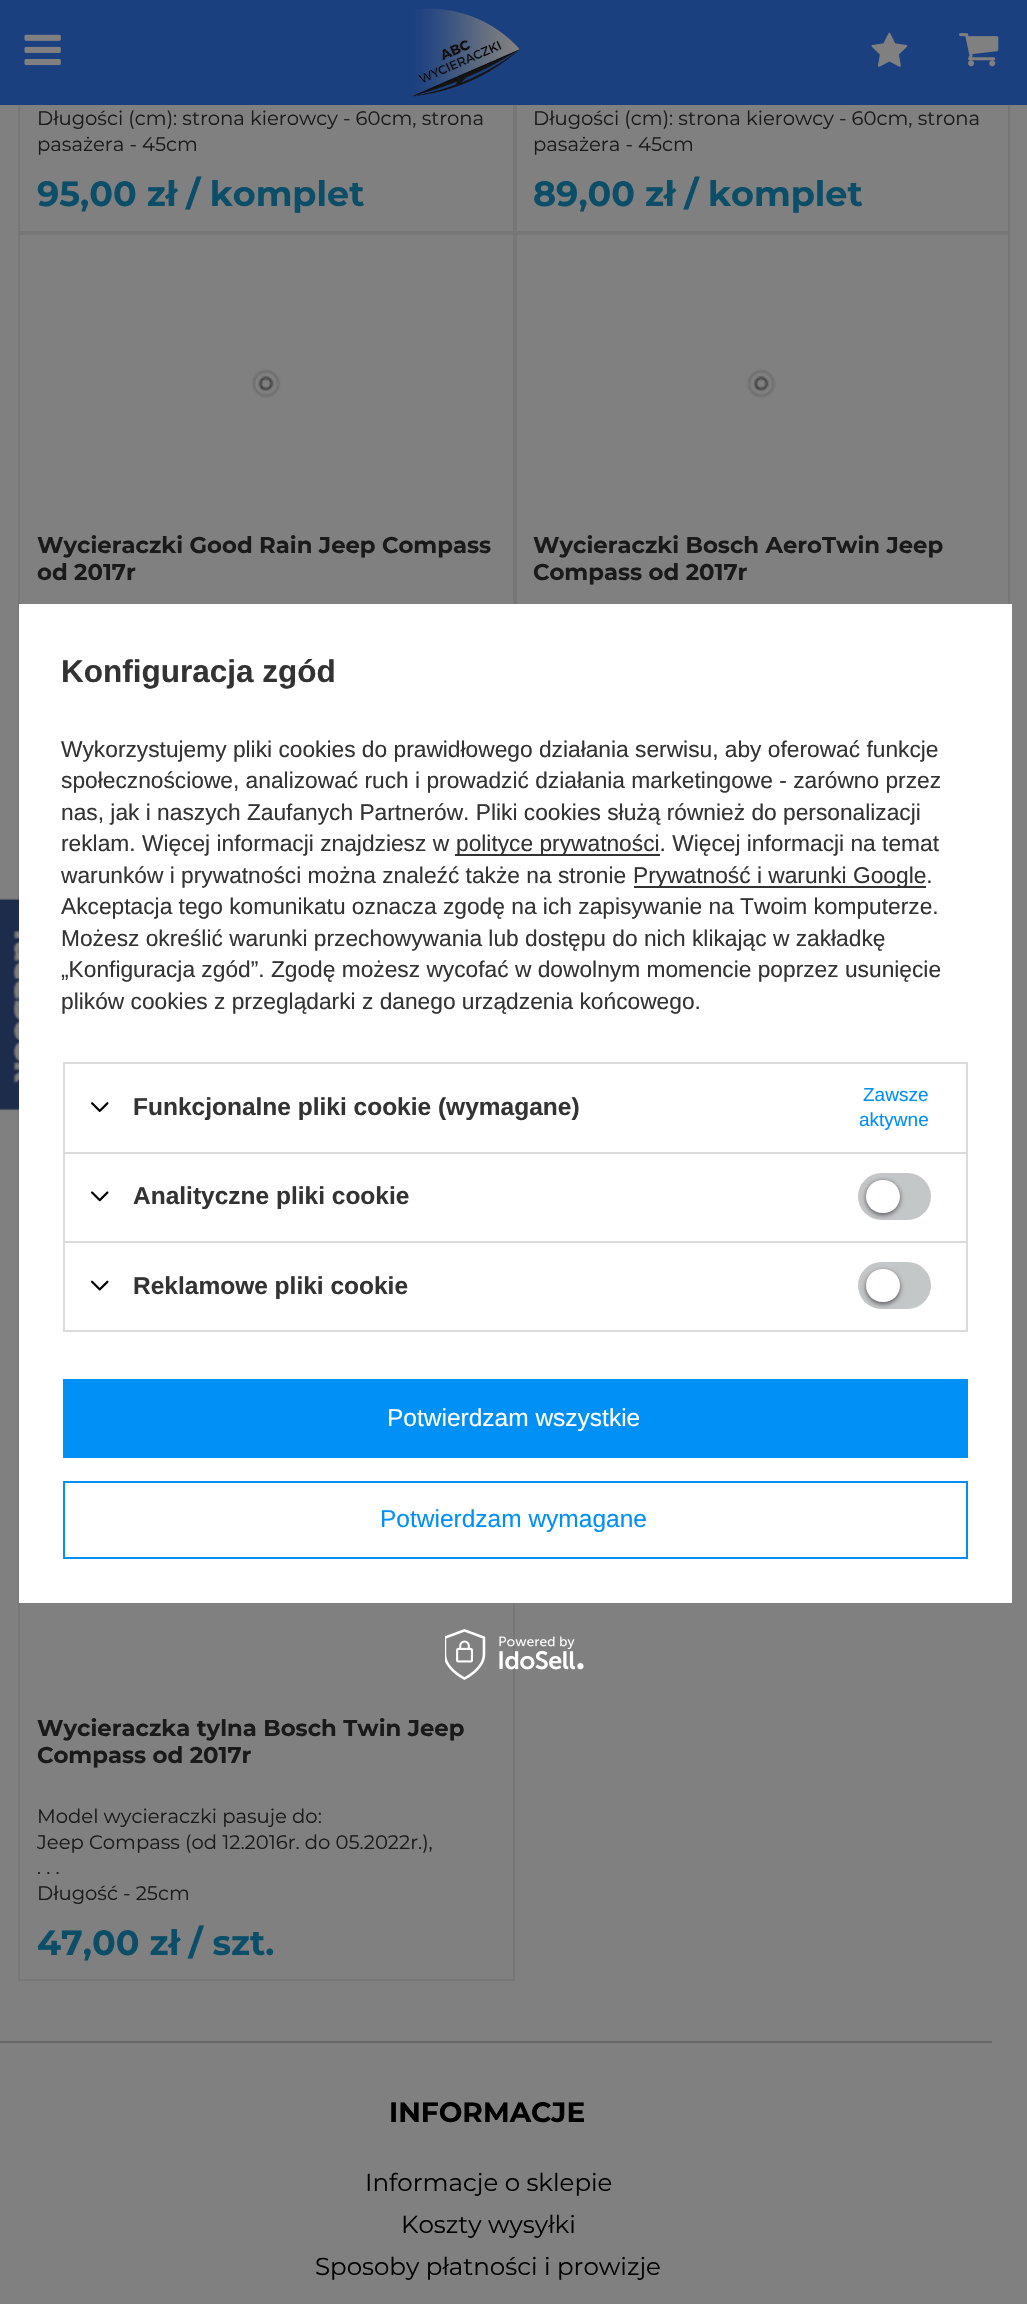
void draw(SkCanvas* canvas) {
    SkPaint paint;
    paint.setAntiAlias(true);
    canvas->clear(0xFF808080);
    paint.setStyle(SkPaint::kStroke_Style);
    paint.setStrokeWidth(2);
    paint.setColor(0xFF777777);
    canvas->drawRect(SkRect::MakeXYWH(19, -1, 495, 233), paint);
    canvas->drawRect(SkRect::MakeXYWH(516, -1, 493, 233), paint);
    paint.setStyle(SkPaint::kFill_Style);
    paint.setColor(0xFF1B4080);
    canvas->drawRect(SkRect::MakeXYWH(0, 0, 1027, 105), paint);
    canvas->drawImageRect(SkImages::DeferredFromEncodedData(SkData::MakeFromFileName("img1.png")), SkRect::MakeXYWH(24, 34, 37, 32), SkSamplingOptions());
    canvas->drawImageRect(SkImages::DeferredFromEncodedData(SkData::MakeFromFileName("img2.png")), SkRect::MakeXYWH(412, 8, 108, 89), SkSamplingOptions());
    canvas->drawImageRect(SkImages::DeferredFromEncodedData(SkData::MakeFromFileName("img3.png")), SkRect::MakeXYWH(871, 32, 37, 35), SkSamplingOptions());
    canvas->drawImageRect(SkImages::DeferredFromEncodedData(SkData::MakeFromFileName("img4.png")), SkRect::MakeXYWH(959, 33, 40, 34), SkSamplingOptions());
    SkFont font1(fontMgr->matchFamilyStyle("Montserrat", SkFontStyle::Normal()), 19.6f);
    font1.setSubpixel(true);
    paint.setColor(0xFF1A1A1A);
    canvas->drawString("Długości (cm): strona kierowcy - 60cm, strona", 37, 125, font1, paint);
    canvas->drawString("pasażera - 45cm", 37, 151, font1, paint);
    SkFont font2(fontMgr->matchFamilyStyle("Montserrat", SkFontStyle::Bold()), 35);
    font2.setSubpixel(true);
    paint.setColor(0xFF0C4D67);
    canvas->drawString("95,00 zł / komplet", 37, 206, font2, paint);
    paint.setColor(0xFF1A1A1A);
    canvas->drawString("Długości (cm): strona kierowcy - 60cm, strona", 533, 125, font1, paint);
    canvas->drawString("pasażera - 45cm", 533, 151, font1, paint);
    paint.setColor(0xFF0C4D67);
    canvas->drawString("89,00 zł / komplet", 533, 206, font2, paint);
    paint.setStyle(SkPaint::kStroke_Style);
    paint.setColor(0xFF777777);
    canvas->drawRect(SkRect::MakeXYWH(19, 234, 495, 589), paint);
    canvas->drawImageRect(SkImages::DeferredFromEncodedData(SkData::MakeFromFileName("img5.png")), SkRect::MakeXYWH(252, 369, 29, 29), SkSamplingOptions());
    SkFont font3(fontMgr->matchFamilyStyle("Montserrat", SkFontStyle::Bold()), 22.75f);
    font3.setSubpixel(true);
    paint.setStyle(SkPaint::kFill_Style);
    paint.setColor(0xFF1A1A1A);
    canvas->drawString("Wycieraczki Good Rain Jeep Compass", 37, 553, font3, paint);
    canvas->drawString("od 2017r", 37, 580, font3, paint);
    paint.setStyle(SkPaint::kStroke_Style);
    paint.setColor(0xFF777777);
    canvas->drawRect(SkRect::MakeXYWH(516, 234, 493, 589), paint);
    canvas->drawImageRect(SkImages::DeferredFromEncodedData(SkData::MakeFromFileName("img6.png")), SkRect::MakeXYWH(747, 369, 29, 29), SkSamplingOptions());
    paint.setStyle(SkPaint::kFill_Style);
    paint.setColor(0xFF1A1A1A);
    canvas->drawString("Wycieraczki Bosch AeroTwin Jeep", 533, 553, font3, paint);
    canvas->drawString("Compass od 2017r", 533, 580, font3, paint);
    paint.setStyle(SkPaint::kStroke_Style);
    paint.setColor(0xFF777777);
    canvas->drawRect(SkRect::MakeXYWH(19, 825, 495, 590), paint);
    canvas->drawRect(SkRect::MakeXYWH(19, 1417, 495, 563), paint);
    paint.setStyle(SkPaint::kFill_Style);
    paint.setColor(0xFF1A1A1A);
    canvas->drawString("Wycieraczka tylna Bosch Twin Jeep", 37, 1736, font3, paint);
    canvas->drawString("Compass od 2017r", 37, 1763, font3, paint);
    canvas->drawString("Model wycieraczki pasuje do:", 37, 1823, font1, paint);
    canvas->drawString("Jeep Compass (od 12.2016r. do 05.2022r.),", 37, 1849, font1, paint);
    canvas->drawString(". . .", 37, 1874, font1, paint);
    canvas->drawString("Długość - 25cm", 37, 1900, font1, paint);
    paint.setColor(0xFF0C4D67);
    canvas->drawString("47,00 zł / szt.", 37, 1955, font2, paint);
    canvas->drawImageRect(SkImages::DeferredFromEncodedData(SkData::MakeFromFileName("img7.png")), SkRect::MakeXYWH(0, 898, 19, 213), SkSamplingOptions());
    paint.setColor(0xFFFFFFFF);
    canvas->drawRect(SkRect::MakeXYWH(19, 604, 993, 999), paint);
    SkFont font4(fontMgr->matchFamilyStyle("Liberation Sans", SkFontStyle::Bold()), 31.5f);
    font4.setSubpixel(true);
    paint.setColor(0xFF333333);
    canvas->drawString("Konfiguracja zgód", 61, 682, font4, paint);
    SkFont font5(fontMgr->matchFamilyStyle("Liberation Sans", SkFontStyle::Normal()), 22.75f);
    font5.setSubpixel(true);
    canvas->drawString("Wykorzystujemy pliki cookies do prawidłowego działania serwisu, aby oferować funkcje", 61, 757, font5, paint);
    canvas->drawString("społecznościowe, analizować ruch i prowadzić działania marketingowe - zarówno przez", 61, 788, font5, paint);
    canvas->drawString("nas, jak i naszych Zaufanych Partnerów. Pliki cookies służą również do personalizacji", 61, 820, font5, paint);
    canvas->drawString("reklam. Więcej informacji znajdziesz w", 61, 851, font5, paint);
    canvas->drawRect(SkRect::MakeXYWH(455, 854, 205, 2), paint);
    canvas->drawString("polityce prywatności. Więcej informacji na temat", 456, 851, font5, paint);
    canvas->drawString("warunków i prywatności można znaleźć także na stronie", 61, 883, font5, paint);
    canvas->drawRect(SkRect::MakeXYWH(634, 886, 292, 2), paint);
    canvas->drawString("Prywatność i warunki Google.", 633, 883, font5, paint);
    canvas->drawString("Akceptacja tego komunikatu oznacza zgodę na ich zapisywanie na Twoim komputerze.", 61, 914, font5, paint);
    canvas->drawString("Możesz określić warunki przechowywania lub dostępu do nich klikając w zakładkę", 61, 946, font5, paint);
    canvas->drawString("„Konfiguracja zgód”. Zgodę możesz wycofać w dowolnym momencie poprzez usunięcie", 61, 977, font5, paint);
    canvas->drawString("plików cookies z przeglądarki z danego urządzenia końcowego.", 61, 1009, font5, paint);
    paint.setColor(0xFFDBDBDB);
    canvas->drawRect(SkRect::MakeXYWH(63, 1062, 905, 2), paint);
    canvas->drawRect(SkRect::MakeXYWH(966, 1062, 2, 90), paint);
    canvas->drawRect(SkRect::MakeXYWH(63, 1062, 2, 90), paint);
    canvas->drawImageRect(SkImages::DeferredFromEncodedData(SkData::MakeFromFileName("img8.png")), SkRect::MakeXYWH(91, 1102, 18, 10), SkSamplingOptions());
    SkFont font6(fontMgr->matchFamilyStyle("Liberation Sans", SkFontStyle::Bold()), 24.5f);
    font6.setSubpixel(true);
    paint.setColor(0xFF333333);
    canvas->drawString("Funkcjonalne pliki cookie (wymagane)", 133, 1115, font6, paint);
    SkFont font7(fontMgr->matchFamilyStyle("Liberation Sans", SkFontStyle::Normal()), 19);
    font7.setSubpixel(true);
    paint.setColor(0xFF0090F6);
    canvas->drawString("Zawsze", 863, 1101, font7, paint);
    canvas->drawString("aktywne", 859, 1126, font7, paint);
    paint.setColor(0xFFDBDBDB);
    canvas->drawRect(SkRect::MakeXYWH(63, 1152, 905, 2), paint);
    canvas->drawRect(SkRect::MakeXYWH(966, 1152, 2, 89), paint);
    canvas->drawRect(SkRect::MakeXYWH(63, 1152, 2, 89), paint);
    canvas->drawImageRect(SkImages::DeferredFromEncodedData(SkData::MakeFromFileName("img9.png")), SkRect::MakeXYWH(91, 1191, 18, 11), SkSamplingOptions());
    paint.setColor(0xFF333333);
    canvas->drawString("Analityczne pliki cookie", 133, 1204, font6, paint);
    paint.setColor(0xFFC4C7C8);
    canvas->drawRoundRect(SkRect::MakeXYWH(858, 1173, 73, 47), 23.5f, 23.5f, paint);
    paint.setColor(0x8F000000);
    paint.setMaskFilter(SkMaskFilter::MakeBlur(kNormal_SkBlurStyle, 2.5f));
    canvas->drawRoundRect(SkRect::MakeXYWH(866, 1181, 34, 34), 17, 17, paint);
    paint.setMaskFilter(nullptr);
    paint.setColor(0xFFFFFFFF);
    canvas->drawRoundRect(SkRect::MakeXYWH(866, 1180, 34, 33), 16.5f, 16.5f, paint);
    paint.setStyle(SkPaint::kStroke_Style);
    paint.setColor(0xFFDBDBDB);
    canvas->drawRect(SkRect::MakeXYWH(64, 1242, 903, 89), paint);
    canvas->drawImageRect(SkImages::DeferredFromEncodedData(SkData::MakeFromFileName("img10.png")), SkRect::MakeXYWH(91, 1280, 18, 11), SkSamplingOptions());
    paint.setStyle(SkPaint::kFill_Style);
    paint.setColor(0xFF333333);
    canvas->drawString("Reklamowe pliki cookie", 133, 1294, font6, paint);
    paint.setColor(0xFFC4C7C8);
    canvas->drawRoundRect(SkRect::MakeXYWH(858, 1262, 73, 47), 23.5f, 23.5f, paint);
    paint.setColor(0x8F000000);
    paint.setMaskFilter(SkMaskFilter::MakeBlur(kNormal_SkBlurStyle, 2.5f));
    canvas->drawRoundRect(SkRect::MakeXYWH(866, 1271, 34, 33), 16.5f, 16.5f, paint);
    paint.setMaskFilter(nullptr);
    paint.setColor(0xFFFFFFFF);
    canvas->drawRoundRect(SkRect::MakeXYWH(866, 1269, 34, 33), 16.5f, 16.5f, paint);
    paint.setColor(0xFF0090F6);
    canvas->drawRect(SkRect::MakeXYWH(63, 1379, 905, 79), paint);
    SkFont font8(fontMgr->matchFamilyStyle("Liberation Sans", SkFontStyle::Normal()), 24.5f);
    font8.setSubpixel(true);
    paint.setColor(0xFFFFFFFF);
    canvas->drawString("Potwierdzam wszystkie", 387, 1426, font8, paint);
    paint.setStyle(SkPaint::kStroke_Style);
    paint.setColor(0xFF0090F6);
    canvas->drawRect(SkRect::MakeXYWH(64, 1482, 903, 76), paint);
    paint.setStyle(SkPaint::kFill_Style);
    canvas->drawString("Potwierdzam wymagane", 380, 1527, font8, paint);
    canvas->drawImageRect(SkImages::DeferredFromEncodedData(SkData::MakeFromFileName("img11.png")), SkRect::MakeXYWH(445, 1629, 139, 51), SkSamplingOptions());
    paint.setColor(0xFF666666);
    canvas->drawRect(SkRect::MakeXYWH(0, 2041, 992, 2), paint);
    SkFont font9(fontMgr->matchFamilyStyle("Montserrat", SkFontStyle::Bold()), 28);
    font9.setSubpixel(true);
    paint.setColor(0xFF000000);
    canvas->drawString("INFORMACJE", 389, 2122, font9, paint);
    SkFont font10(fontMgr->matchFamilyStyle("Montserrat", SkFontStyle::Normal()), 24.5f);
    font10.setSubpixel(true);
    canvas->drawString("Informacje o sklepie", 365, 2191, font10, paint);
    canvas->drawString("Koszty wysyłki", 401, 2233, font10, paint);
    canvas->drawString("Sposoby płatności i prowizje", 315, 2275, font10, paint);
}
